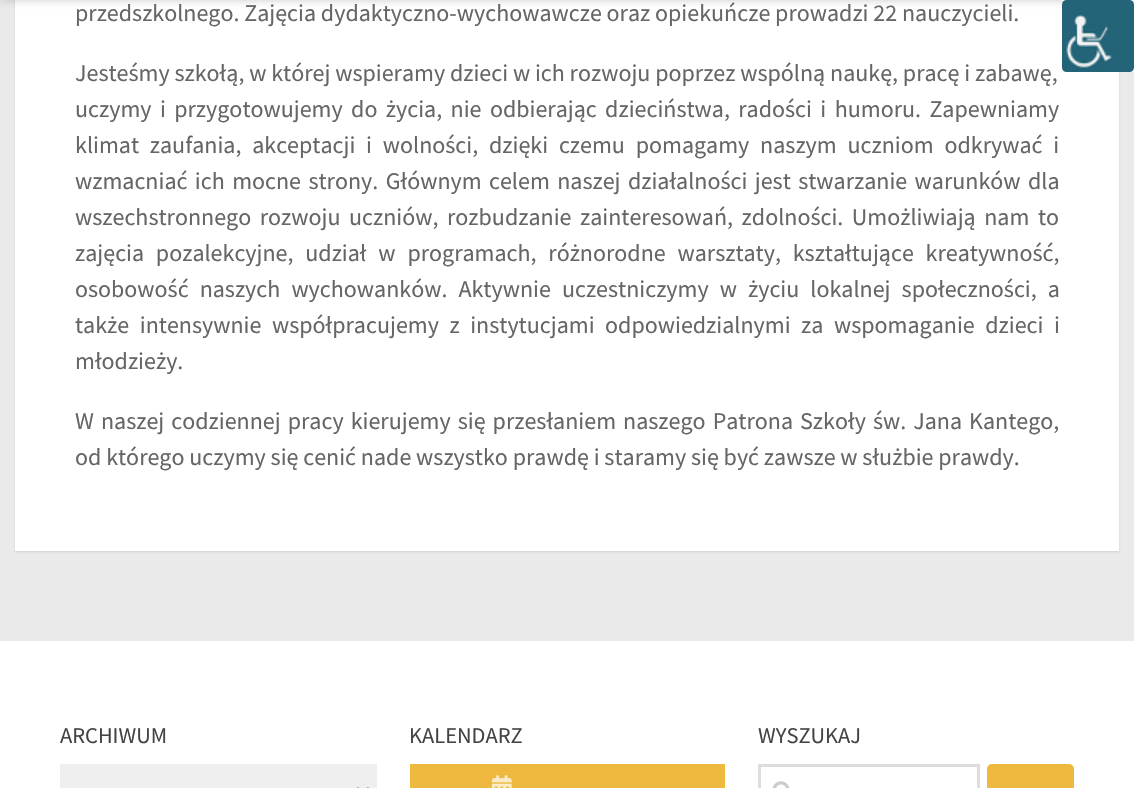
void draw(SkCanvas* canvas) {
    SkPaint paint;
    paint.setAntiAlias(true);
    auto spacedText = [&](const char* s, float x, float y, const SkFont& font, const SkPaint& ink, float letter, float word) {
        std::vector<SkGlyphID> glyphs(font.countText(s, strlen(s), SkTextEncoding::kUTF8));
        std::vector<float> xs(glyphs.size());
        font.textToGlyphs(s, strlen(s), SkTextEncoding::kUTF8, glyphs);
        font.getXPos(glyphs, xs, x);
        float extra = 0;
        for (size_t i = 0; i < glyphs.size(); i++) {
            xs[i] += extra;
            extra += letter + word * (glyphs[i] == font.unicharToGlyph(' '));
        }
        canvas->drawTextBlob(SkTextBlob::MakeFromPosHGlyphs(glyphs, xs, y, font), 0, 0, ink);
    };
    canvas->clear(0xFFEAEAEA);
    paint.setColor(0x1A000000);
    paint.setMaskFilter(SkMaskFilter::MakeBlur(kNormal_SkBlurStyle, 1));
    canvas->drawRect(SkRect::MakeXYWH(15, -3, 1104, 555), paint);
    paint.setMaskFilter(nullptr);
    paint.setColor(0x26FFFFFF);
    canvas->drawRect(SkRect::MakeXYWH(0, 0, 15, 2), paint);
    paint.setColor(0xFFFFFFFF);
    canvas->drawRect(SkRect::MakeXYWH(15, 0, 1104, 551), paint);
    paint.setColor(0x33000000);
    paint.setMaskFilter(SkMaskFilter::MakeBlur(kNormal_SkBlurStyle, 4));
    canvas->drawRect(SkRect::MakeXYWH(0, -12, 1134, 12), paint);
    paint.setMaskFilter(nullptr);
    SkFont font1(fontMgr->matchFamilyStyle("Source Sans Pro", SkFontStyle::Normal()), 24);
    font1.setSubpixel(true);
    paint.setColor(0xFF666666);
    canvas->drawString("przedszkolnego. Zajęcia dydaktyczno-wychowawcze oraz opiekuńcze prowadzi 22 nauczycieli.", 75, 21, font1, paint);
    canvas->drawString("Jesteśmy szkołą, w której wspieramy dzieci w ich rozwoju poprzez wspólną naukę, pracę i zabawę,", 75, 81, font1, paint);
    spacedText("uczymy i przygotowujemy do życia, nie odbierając dzieciństwa, radości i humoru. Zapewniamy", 75, 117, font1, paint, 0, 3.6f);
    spacedText("klimat zaufania, akceptacji i wolności, dzięki czemu pomagamy naszym uczniom odkrywać i", 75, 153, font1, paint, 0, 6);
    spacedText("wzmacniać ich mocne strony. Głównym celem naszej działalności jest stwarzanie warunków dla", 75, 189, font1, paint, 0, 2.6f);
    spacedText("wszechstronnego rozwoju uczniów, rozbudzanie zainteresowań, zdolności. Umożliwiają nam to", 75, 225, font1, paint, 0, 3.75f);
    spacedText("zajęcia pozalekcyjne, udział w programach, różnorodne warsztaty, kształtujące kreatywność,", 75, 261, font1, paint, 0, 7);
    spacedText("osobowość naszych wychowanków. Aktywnie uczestniczymy w życiu lokalnej społeczności, a", 75, 297, font1, paint, 0, 6.25f);
    spacedText("także intensywnie współpracujemy z instytucjami odpowiedzialnymi za wspomaganie dzieci i", 75, 333, font1, paint, 0, 5.75f);
    canvas->drawString("młodzieży.", 75, 369, font1, paint);
    spacedText("W naszej codziennej pracy kierujemy się przesłaniem naszego Patrona Szkoły św. Jana Kantego,", 75, 429, font1, paint, 0, 2.25f);
    canvas->drawString("od którego uczymy się cenić nade wszystko prawdę i staramy się być zawsze w służbie prawdy.", 75, 465, font1, paint);
    paint.setColor(0xFFFFFFFF);
    canvas->drawRect(SkRect::MakeXYWH(0, 641, 1134, 147), paint);
    SkFont font2(fontMgr->matchFamilyStyle("Source Sans Pro", SkFontStyle::Normal()), 22.5f);
    font2.setSubpixel(true);
    paint.setColor(0xFF444444);
    canvas->drawString("ARCHIWUM", 60, 743, font2, paint);
    paint.setColor(0xFFEFEFEF);
    canvas->drawRect(SkRect::MakeXYWH(60, 764, 317, 24), paint);
    paint.setStyle(SkPaint::kStroke_Style);
    paint.setStrokeWidth(3);
    paint.setColor(0xFF777777);
    canvas->drawPath(SkPathBuilder().moveTo(357, 788).lineTo(363, 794).lineTo(369, 788).detach(), paint);
    paint.setStyle(SkPaint::kFill_Style);
    paint.setColor(0xFF444444);
    canvas->drawString("KALENDARZ", 409, 743, font2, paint);
    paint.setColor(0xFFEFB93F);
    canvas->drawRect(SkRect::MakeXYWH(410, 764, 315, 24), paint);
    canvas->drawImageRect(SkImages::DeferredFromEncodedData(SkData::MakeFromFileName("img1.png")), SkRect::MakeXYWH(492, 775, 20, 13), SkSamplingOptions());
    paint.setColor(0xFF444444);
    canvas->drawString("WYSZUKAJ", 758, 743, font2, paint);
    paint.setStyle(SkPaint::kStroke_Style);
    paint.setColor(0xFFDDDDDD);
    canvas->drawRect(SkRect::MakeXYWH(759.5f, 765.5f, 219, 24), paint);
    canvas->drawImageRect(SkImages::DeferredFromEncodedData(SkData::MakeFromFileName("img2.png")), SkRect::MakeXYWH(772, 781, 18, 7), SkSamplingOptions());
    paint.setStyle(SkPaint::kFill_Style);
    paint.setColor(0xFFEFB93F);
    canvas->drawRoundRect(SkRect::MakeXYWH(987, 764, 87, 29), 5, 5, paint);
    paint.setColor(0xFFFFFFFF);
    canvas->drawRect(SkRect::MakeXYWH(1062, 0, 72, 72), paint);
    canvas->drawImageRect(SkImages::DeferredFromEncodedData(SkData::MakeFromFileName("img3.png")), SkRect::MakeXYWH(1062, 0, 72, 72), SkSamplingOptions());
}
